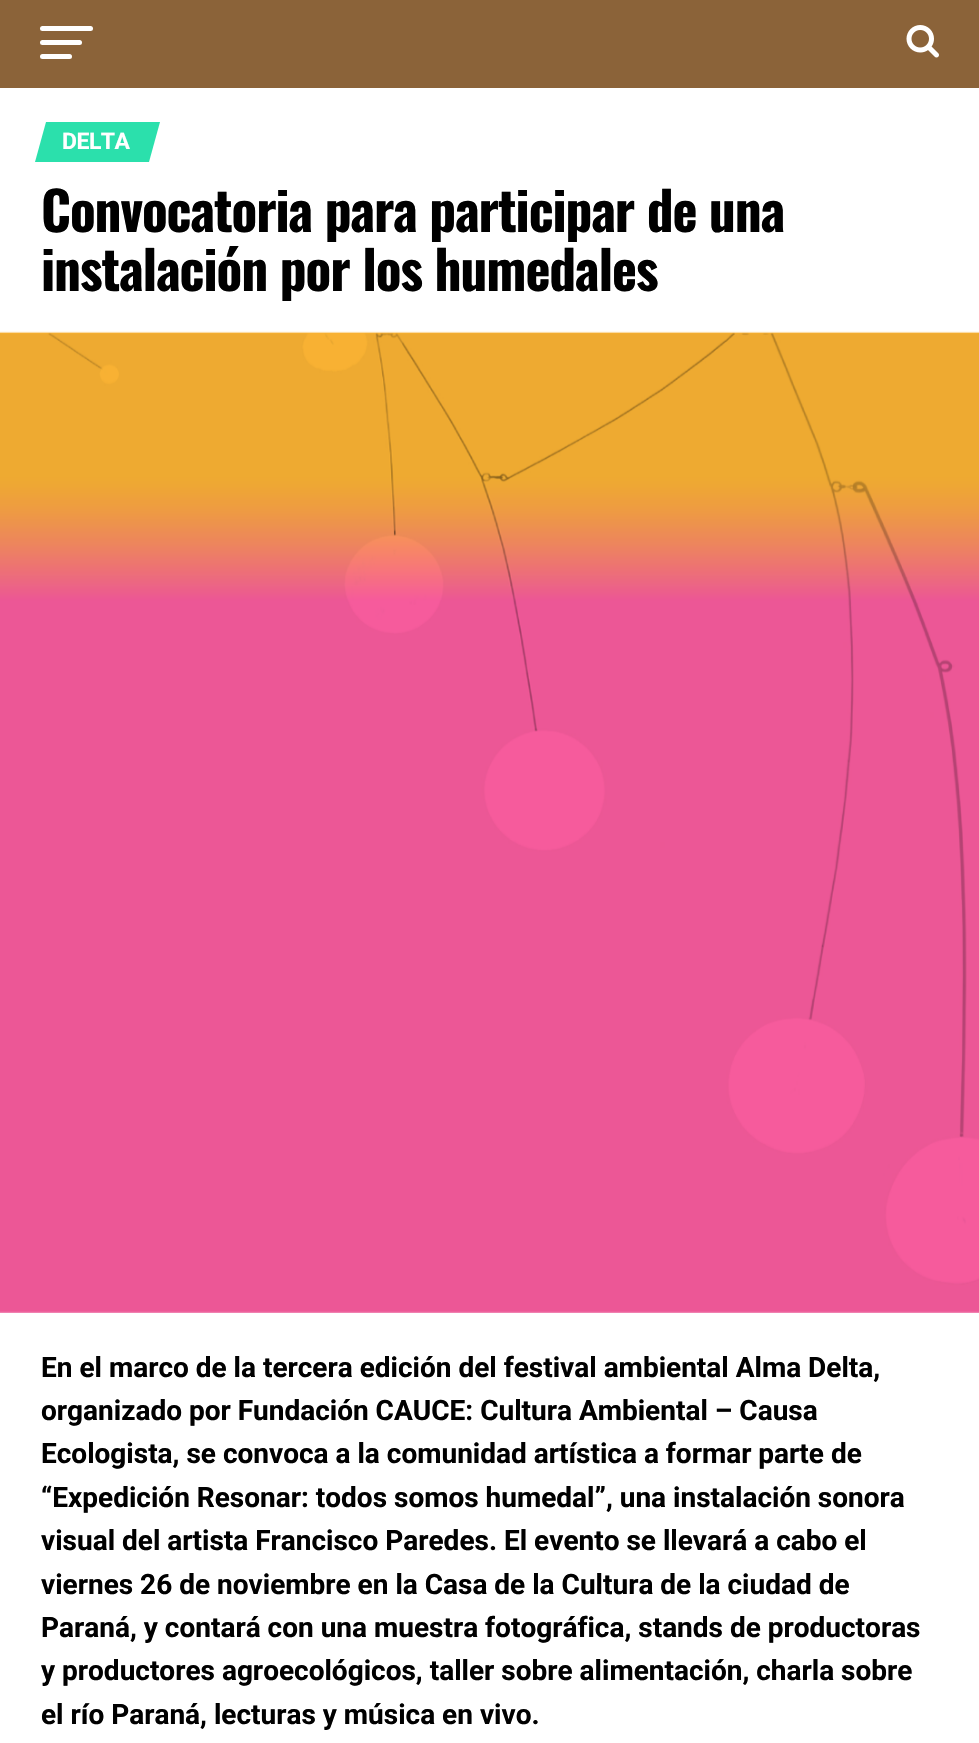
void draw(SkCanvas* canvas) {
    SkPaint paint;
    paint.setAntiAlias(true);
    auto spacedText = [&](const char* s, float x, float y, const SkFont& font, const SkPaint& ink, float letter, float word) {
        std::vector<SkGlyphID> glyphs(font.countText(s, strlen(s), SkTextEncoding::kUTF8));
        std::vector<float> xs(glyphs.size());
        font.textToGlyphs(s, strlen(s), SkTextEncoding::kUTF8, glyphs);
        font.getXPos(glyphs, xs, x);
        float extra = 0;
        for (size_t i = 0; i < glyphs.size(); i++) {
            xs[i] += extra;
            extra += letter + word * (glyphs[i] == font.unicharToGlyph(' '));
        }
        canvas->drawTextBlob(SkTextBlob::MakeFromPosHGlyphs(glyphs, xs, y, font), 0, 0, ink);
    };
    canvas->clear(0xFFFFFFFF);
    paint.setColor(0xFF8B6339);
    canvas->drawRect(SkRect::MakeXYWH(0, 0, 979, 88), paint);
    paint.setColor(0xFFFFFFFF);
    canvas->drawRoundRect(SkRect::MakeXYWH(40, 26, 53, 5), 2.5f, 2.5f, paint);
    canvas->drawRoundRect(SkRect::MakeXYWH(40, 40, 42, 5), 2.5f, 2.5f, paint);
    canvas->drawRoundRect(SkRect::MakeXYWH(40, 54, 32, 5), 2.5f, 2.5f, paint);
    canvas->drawImageRect(SkImages::DeferredFromEncodedData(SkData::MakeFromFileName("img1.png")), SkRect::MakeXYWH(906, 25, 33, 33), SkSamplingOptions());
    paint.setColor(0xFF2BE0AC);
    canvas->drawPath(SkPathBuilder().moveTo(46, 122).lineTo(160, 122).lineTo(149, 162).lineTo(35, 162).close().detach(), paint);
    SkFont font1(fontMgr->matchFamilyStyle("Roboto", SkFontStyle::Bold()), 23);
    font1.setSubpixel(true);
    paint.setColor(0xFFFFFFFF);
    spacedText("DELTA", 62, 149, font1, paint, -0.5f, 0);
    SkFont font2(fontMgr->matchFamilyStyle("Oswald", SkFontStyle::Bold()), 53.25f);
    font2.setSubpixel(true);
    paint.setColor(0xFF000000);
    spacedText("Convocatoria para participar de una", 41, 232, font2, paint, -1.05f, 0);
    spacedText("instalación por los humedales", 41, 291, font2, paint, -1.05f, 0);
    canvas->drawImageRect(SkImages::DeferredFromEncodedData(SkData::MakeFromFileName("img2.png")), SkRect::MakeXYWH(0, 331, 979, 982), SkSamplingOptions());
    SkFont font3(fontMgr->matchFamilyStyle("Roboto", SkFontStyle::Bold()), 28);
    font3.setSubpixel(true);
    canvas->drawString("En el marco de la tercera edición del festival ambiental Alma Delta,", 41, 1377, font3, paint);
    canvas->drawString("organizado por Fundación CAUCE: Cultura Ambiental – Causa", 41, 1420, font3, paint);
    canvas->drawString("Ecologista, se convoca a la comunidad artística a formar parte de", 41, 1463, font3, paint);
    canvas->drawString("“Expedición Resonar: todos somos humedal”, una instalación sonora", 41, 1507, font3, paint);
    canvas->drawString("visual del artista Francisco Paredes. El evento se llevará a cabo el", 41, 1550, font3, paint);
    canvas->drawString("viernes 26 de noviembre en la Casa de la Cultura de la ciudad de", 41, 1594, font3, paint);
    canvas->drawString("Paraná, y contará con una muestra fotográfica, stands de productoras", 41, 1637, font3, paint);
    canvas->drawString("y productores agroecológicos, taller sobre alimentación, charla sobre", 41, 1680, font3, paint);
    canvas->drawString("el río Paraná, lecturas y música en vivo.", 41, 1724, font3, paint);
}
